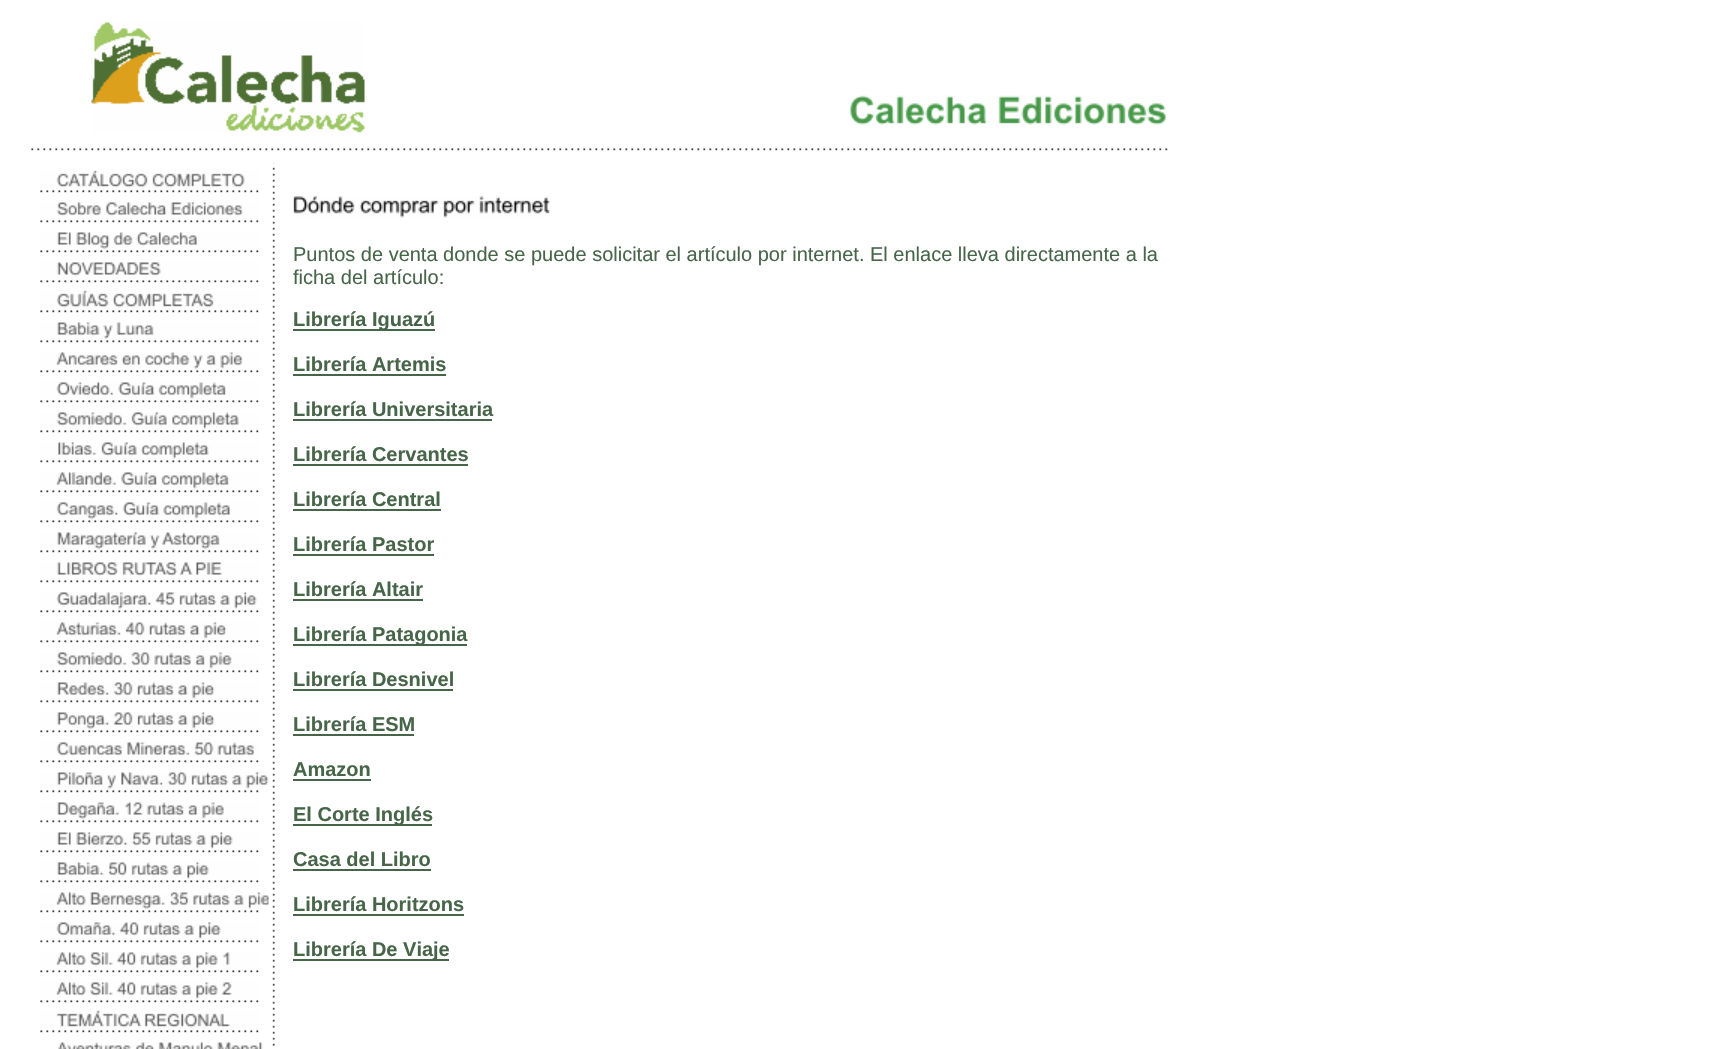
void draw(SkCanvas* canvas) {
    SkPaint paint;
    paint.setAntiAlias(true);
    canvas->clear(0xFFFFFFFF);
    canvas->drawImageRect(SkImages::DeferredFromEncodedData(SkData::MakeFromFileName("img1.png")), SkRect::MakeXYWH(91, 22, 274, 111), SkSamplingOptions());
    canvas->drawImageRect(SkImages::DeferredFromEncodedData(SkData::MakeFromFileName("img2.png")), SkRect::MakeXYWH(850, 95, 316, 30), SkSamplingOptions());
    canvas->drawImageRect(SkImages::DeferredFromEncodedData(SkData::MakeFromFileName("img34.png")), SkRect::MakeXYWH(272, 163, 3, 883), SkSamplingOptions());
    canvas->drawImageRect(SkImages::DeferredFromEncodedData(SkData::MakeFromFileName("img3.png")), SkRect::MakeXYWH(31, 148, 1137, 16), SkSamplingOptions());
    canvas->drawImageRect(SkImages::DeferredFromEncodedData(SkData::MakeFromFileName("img4.png")), SkRect::MakeXYWH(40, 170, 219, 23), SkSamplingOptions());
    canvas->drawImageRect(SkImages::DeferredFromEncodedData(SkData::MakeFromFileName("img5.png")), SkRect::MakeXYWH(40, 202, 219, 21), SkSamplingOptions());
    canvas->drawImageRect(SkImages::DeferredFromEncodedData(SkData::MakeFromFileName("img6.png")), SkRect::MakeXYWH(40, 232, 219, 21), SkSamplingOptions());
    canvas->drawImageRect(SkImages::DeferredFromEncodedData(SkData::MakeFromFileName("img7.png")), SkRect::MakeXYWH(40, 262, 219, 21), SkSamplingOptions());
    canvas->drawImageRect(SkImages::DeferredFromEncodedData(SkData::MakeFromFileName("img8.png")), SkRect::MakeXYWH(40, 290, 219, 23), SkSamplingOptions());
    canvas->drawImageRect(SkImages::DeferredFromEncodedData(SkData::MakeFromFileName("img9.png")), SkRect::MakeXYWH(40, 322, 219, 21), SkSamplingOptions());
    canvas->drawImageRect(SkImages::DeferredFromEncodedData(SkData::MakeFromFileName("img10.png")), SkRect::MakeXYWH(40, 352, 219, 21), SkSamplingOptions());
    canvas->drawImageRect(SkImages::DeferredFromEncodedData(SkData::MakeFromFileName("img11.png")), SkRect::MakeXYWH(40, 382, 219, 21), SkSamplingOptions());
    canvas->drawImageRect(SkImages::DeferredFromEncodedData(SkData::MakeFromFileName("img12.png")), SkRect::MakeXYWH(40, 412, 219, 21), SkSamplingOptions());
    canvas->drawImageRect(SkImages::DeferredFromEncodedData(SkData::MakeFromFileName("img13.png")), SkRect::MakeXYWH(40, 442, 219, 21), SkSamplingOptions());
    canvas->drawImageRect(SkImages::DeferredFromEncodedData(SkData::MakeFromFileName("img14.png")), SkRect::MakeXYWH(40, 472, 219, 21), SkSamplingOptions());
    canvas->drawImageRect(SkImages::DeferredFromEncodedData(SkData::MakeFromFileName("img15.png")), SkRect::MakeXYWH(40, 502, 219, 21), SkSamplingOptions());
    canvas->drawImageRect(SkImages::DeferredFromEncodedData(SkData::MakeFromFileName("img16.png")), SkRect::MakeXYWH(40, 532, 219, 21), SkSamplingOptions());
    canvas->drawImageRect(SkImages::DeferredFromEncodedData(SkData::MakeFromFileName("img17.png")), SkRect::MakeXYWH(40, 562, 219, 21), SkSamplingOptions());
    canvas->drawImageRect(SkImages::DeferredFromEncodedData(SkData::MakeFromFileName("img18.png")), SkRect::MakeXYWH(40, 592, 219, 21), SkSamplingOptions());
    canvas->drawImageRect(SkImages::DeferredFromEncodedData(SkData::MakeFromFileName("img19.png")), SkRect::MakeXYWH(40, 622, 219, 21), SkSamplingOptions());
    canvas->drawImageRect(SkImages::DeferredFromEncodedData(SkData::MakeFromFileName("img20.png")), SkRect::MakeXYWH(40, 652, 219, 21), SkSamplingOptions());
    canvas->drawImageRect(SkImages::DeferredFromEncodedData(SkData::MakeFromFileName("img21.png")), SkRect::MakeXYWH(40, 682, 219, 21), SkSamplingOptions());
    canvas->drawImageRect(SkImages::DeferredFromEncodedData(SkData::MakeFromFileName("img22.png")), SkRect::MakeXYWH(40, 712, 219, 21), SkSamplingOptions());
    canvas->drawImageRect(SkImages::DeferredFromEncodedData(SkData::MakeFromFileName("img23.png")), SkRect::MakeXYWH(40, 742, 219, 21), SkSamplingOptions());
    canvas->drawImageRect(SkImages::DeferredFromEncodedData(SkData::MakeFromFileName("img24.png")), SkRect::MakeXYWH(40, 772, 229, 21), SkSamplingOptions());
    canvas->drawImageRect(SkImages::DeferredFromEncodedData(SkData::MakeFromFileName("img25.png")), SkRect::MakeXYWH(40, 802, 219, 21), SkSamplingOptions());
    canvas->drawImageRect(SkImages::DeferredFromEncodedData(SkData::MakeFromFileName("img26.png")), SkRect::MakeXYWH(40, 832, 219, 21), SkSamplingOptions());
    canvas->drawImageRect(SkImages::DeferredFromEncodedData(SkData::MakeFromFileName("img27.png")), SkRect::MakeXYWH(40, 862, 219, 21), SkSamplingOptions());
    canvas->drawImageRect(SkImages::DeferredFromEncodedData(SkData::MakeFromFileName("img28.png")), SkRect::MakeXYWH(40, 892, 229, 21), SkSamplingOptions());
    canvas->drawImageRect(SkImages::DeferredFromEncodedData(SkData::MakeFromFileName("img29.png")), SkRect::MakeXYWH(40, 922, 219, 21), SkSamplingOptions());
    canvas->drawImageRect(SkImages::DeferredFromEncodedData(SkData::MakeFromFileName("img30.png")), SkRect::MakeXYWH(40, 952, 219, 21), SkSamplingOptions());
    canvas->drawImageRect(SkImages::DeferredFromEncodedData(SkData::MakeFromFileName("img31.png")), SkRect::MakeXYWH(40, 982, 219, 21), SkSamplingOptions());
    canvas->drawImageRect(SkImages::DeferredFromEncodedData(SkData::MakeFromFileName("img32.png")), SkRect::MakeXYWH(40, 1010, 219, 23), SkSamplingOptions());
    canvas->drawImageRect(SkImages::DeferredFromEncodedData(SkData::MakeFromFileName("img33.png")), SkRect::MakeXYWH(58, 1042, 205, 7), SkSamplingOptions());
    canvas->drawImageRect(SkImages::DeferredFromEncodedData(SkData::MakeFromFileName("img35.png")), SkRect::MakeXYWH(293, 196, 257, 22), SkSamplingOptions());
    SkFont font1(fontMgr->matchFamilyStyle("Liberation Sans", SkFontStyle::Normal()), 20);
    font1.setSubpixel(true);
    paint.setColor(0xFF476649);
    canvas->drawString("Puntos de venta donde se puede solicitar el artículo por internet. El enlace lleva directamente a la", 293, 261, font1, paint);
    canvas->drawString("ficha del artículo:", 293, 284, font1, paint);
    canvas->drawRect(SkRect::MakeXYWH(293, 329, 142, 2), paint);
    SkFont font2(fontMgr->matchFamilyStyle("Liberation Sans", SkFontStyle::Bold()), 20);
    font2.setSubpixel(true);
    canvas->drawString("Librería Iguazú", 293, 326, font2, paint);
    canvas->drawString("Librería Artemis", 293, 371, font2, paint);
    canvas->drawRect(SkRect::MakeXYWH(293, 374, 153, 2), paint);
    canvas->drawString("Librería Universitaria", 293, 416, font2, paint);
    canvas->drawRect(SkRect::MakeXYWH(293, 419, 199, 2), paint);
    canvas->drawString("Librería Cervantes", 293, 461, font2, paint);
    canvas->drawRect(SkRect::MakeXYWH(293, 464, 175, 2), paint);
    canvas->drawString("Librería Central", 293, 506, font2, paint);
    canvas->drawRect(SkRect::MakeXYWH(293, 509, 148, 2), paint);
    canvas->drawString("Librería Pastor", 293, 551, font2, paint);
    canvas->drawRect(SkRect::MakeXYWH(293, 554, 141, 2), paint);
    canvas->drawString("Librería Altair", 293, 596, font2, paint);
    canvas->drawRect(SkRect::MakeXYWH(293, 599, 130, 2), paint);
    canvas->drawRect(SkRect::MakeXYWH(293, 644, 174, 2), paint);
    canvas->drawString("Librería Patagonia", 293, 641, font2, paint);
    canvas->drawString("Librería Desnivel", 293, 686, font2, paint);
    canvas->drawRect(SkRect::MakeXYWH(293, 689, 160, 2), paint);
    canvas->drawString("Librería ESM", 293, 731, font2, paint);
    canvas->drawRect(SkRect::MakeXYWH(293, 734, 121, 2), paint);
    canvas->drawString("Amazon", 293, 776, font2, paint);
    canvas->drawRect(SkRect::MakeXYWH(293, 779, 78, 2), paint);
    canvas->drawRect(SkRect::MakeXYWH(293, 824, 139, 2), paint);
    canvas->drawString("El Corte Inglés", 293, 821, font2, paint);
    canvas->drawString("Casa del Libro", 293, 866, font2, paint);
    canvas->drawRect(SkRect::MakeXYWH(293, 869, 138, 2), paint);
    canvas->drawString("Librería Horitzons", 293, 911, font2, paint);
    canvas->drawRect(SkRect::MakeXYWH(293, 914, 171, 2), paint);
    canvas->drawRect(SkRect::MakeXYWH(293, 959, 156, 2), paint);
    canvas->drawString("Librería De Viaje", 293, 956, font2, paint);
}
